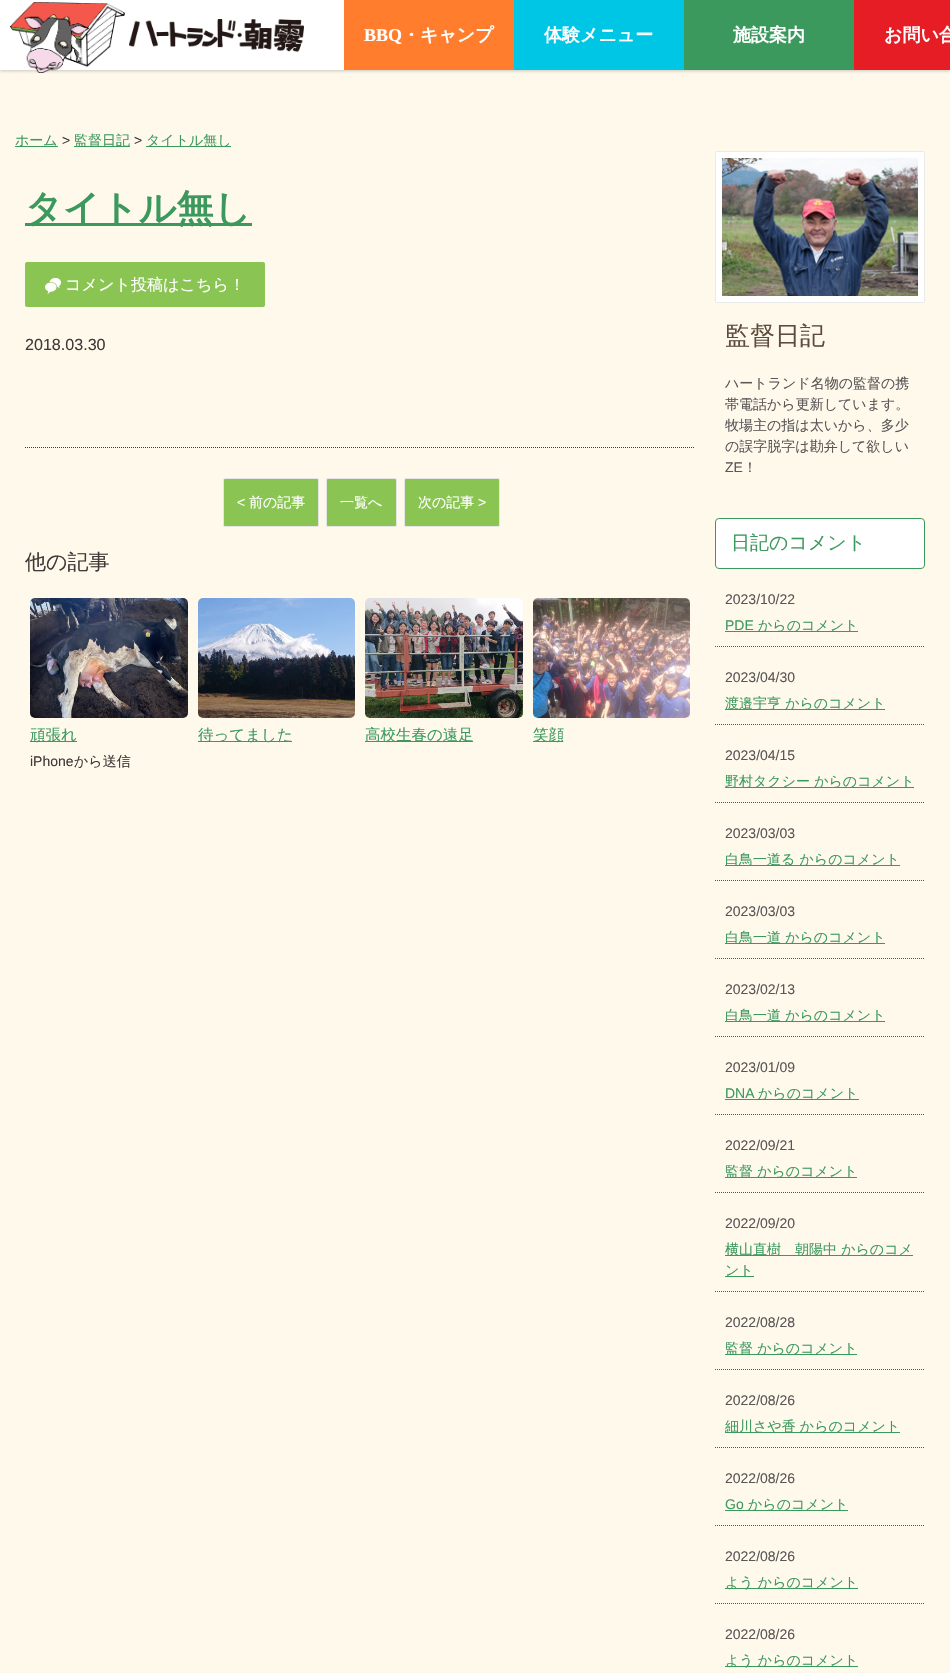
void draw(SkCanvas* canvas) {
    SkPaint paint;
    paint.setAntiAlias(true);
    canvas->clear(0xFFFFF9EC);
    paint.setColor(0x33000000);
    paint.setMaskFilter(SkMaskFilter::MakeBlur(kNormal_SkBlurStyle, 1.5f));
    canvas->drawRect(SkRect::MakeXYWH(0, 1, 950, 70), paint);
    paint.setMaskFilter(nullptr);
    paint.setColor(0xFFFFFFFF);
    canvas->drawRect(SkRect::MakeXYWH(0, 0, 344, 70), paint);
    canvas->drawImageRect(SkImages::DeferredFromEncodedData(SkData::MakeFromFileName("img1.png")), SkRect::MakeXYWH(10, 2, 115, 71), SkSamplingOptions());
    canvas->drawImageRect(SkImages::DeferredFromEncodedData(SkData::MakeFromFileName("img2.png")), SkRect::MakeXYWH(129, 19, 175, 33), SkSamplingOptions());
    paint.setColor(0xFFFF7D2C);
    canvas->drawRect(SkRect::MakeXYWH(344, 0, 170, 70), paint);
    SkFont font1(fontMgr->matchFamilyStyle("Liberation Serif", SkFontStyle::Bold()), 18);
    font1.setSubpixel(true);
    paint.setColor(0xFFFFFFFF);
    canvas->drawString("BBQ", 364, 41, font1, paint);
    SkFont font2(fontMgr->matchFamilyStyle("WenQuanYi Zen Hei", SkFontStyle::Bold()), 18);
    font2.setSubpixel(true);
    canvas->drawString("・キャンプ", 402, 41, font2, paint);
    paint.setColor(0xFF00C6E6);
    canvas->drawRect(SkRect::MakeXYWH(514, 0, 170, 70), paint);
    paint.setColor(0xFFFFFFFF);
    canvas->drawString("体験メニュー", 544, 41, font2, paint);
    paint.setColor(0xFF3C995E);
    canvas->drawRect(SkRect::MakeXYWH(684, 0, 170, 70), paint);
    paint.setColor(0xFFFFFFFF);
    canvas->drawString("施設案内", 733, 41, font2, paint);
    paint.setColor(0xFFE71D26);
    canvas->drawRect(SkRect::MakeXYWH(854, 0, 96, 70), paint);
    paint.setColor(0xFFFFFFFF);
    canvas->drawString("お問い合", 884, 41, font2, paint);
    paint.setColor(0xFF3C995E);
    canvas->drawRect(SkRect::MakeXYWH(15, 146, 43, 1), paint);
    SkFont font3(fontMgr->matchFamilyStyle("WenQuanYi Zen Hei", SkFontStyle(500, SkFontStyle::kNormal_Width, SkFontStyle::kUpright_Slant)), 14);
    font3.setSubpixel(true);
    canvas->drawString("ホーム", 15, 145, font3, paint);
    SkFont font4(fontMgr->matchFamilyStyle("Liberation Sans", SkFontStyle::Normal()), 14);
    font4.setSubpixel(true);
    paint.setColor(0xFF3E3A39);
    canvas->drawString(">", 62, 145, font4, paint);
    paint.setColor(0xFF3C995E);
    canvas->drawRect(SkRect::MakeXYWH(74, 146, 56, 1), paint);
    canvas->drawString("監督日記", 74, 145, font3, paint);
    paint.setColor(0xFF3E3A39);
    canvas->drawString(">", 134, 145, font4, paint);
    paint.setColor(0xFF3C995E);
    canvas->drawRect(SkRect::MakeXYWH(146, 146, 85, 1), paint);
    canvas->drawString("タイトル無し", 146, 145, font3, paint);
    canvas->drawRect(SkRect::MakeXYWH(25, 223, 227, 3), paint);
    SkFont font5(fontMgr->matchFamilyStyle("WenQuanYi Zen Hei", SkFontStyle::Bold()), 37);
    font5.setSubpixel(true);
    canvas->drawString("タイトル無し", 25, 221, font5, paint);
    paint.setColor(0xFF8AC452);
    canvas->drawRoundRect(SkRect::MakeXYWH(25, 262, 240, 45), 2, 2, paint);
    canvas->drawImageRect(SkImages::DeferredFromEncodedData(SkData::MakeFromFileName("img3.png")), SkRect::MakeXYWH(45, 277, 17, 17), SkSamplingOptions());
    SkFont font6(fontMgr->matchFamilyStyle("WenQuanYi Zen Hei", SkFontStyle(500, SkFontStyle::kNormal_Width, SkFontStyle::kUpright_Slant)), 16.1f);
    font6.setSubpixel(true);
    paint.setColor(0xFFFFFFFF);
    canvas->drawString("コメント投稿はこちら！", 65, 290, font6, paint);
    SkFont font7(fontMgr->matchFamilyStyle("Liberation Sans", SkFontStyle::Normal()), 16.1f);
    font7.setSubpixel(true);
    paint.setColor(0xFF3E3A39);
    canvas->drawString("2018.03.30", 25, 350, font7, paint);
    paint.setStyle(SkPaint::kStroke_Style);
    paint.setStrokeWidth(1);
    paint.setPathEffect(SkDashPathEffect::Make({{1, 1}}, 0));
    canvas->drawPath(SkPathBuilder().moveTo(25, 447.5f).lineTo(695, 447.5f).detach(), paint);
    paint.setPathEffect(nullptr);
    paint.setStyle(SkPaint::kFill_Style);
    paint.setColor(0xFF8AC452);
    canvas->drawRoundRect(SkRect::MakeXYWH(223.5f, 478.5f, 95, 48), 1.5f, 1.5f, paint);
    paint.setStyle(SkPaint::kStroke_Style);
    paint.setColor(0xFFE5E5E5);
    canvas->drawRoundRect(SkRect::MakeXYWH(223.5f, 478.5f, 95, 48), 1.5f, 1.5f, paint);
    paint.setStyle(SkPaint::kFill_Style);
    paint.setColor(0xFFFFFFFF);
    canvas->drawString("<", 237, 507, font4, paint);
    canvas->drawString("前の記事", 249, 507, font3, paint);
    paint.setColor(0xFF8AC452);
    canvas->drawRoundRect(SkRect::MakeXYWH(326.5f, 478.5f, 70, 48), 1.5f, 1.5f, paint);
    paint.setStyle(SkPaint::kStroke_Style);
    paint.setColor(0xFFE5E5E5);
    canvas->drawRoundRect(SkRect::MakeXYWH(326.5f, 478.5f, 70, 48), 1.5f, 1.5f, paint);
    paint.setStyle(SkPaint::kFill_Style);
    paint.setColor(0xFFFFFFFF);
    canvas->drawString("一覧へ", 340, 507, font3, paint);
    paint.setColor(0xFF8AC452);
    canvas->drawRoundRect(SkRect::MakeXYWH(404.5f, 478.5f, 95, 48), 1.5f, 1.5f, paint);
    paint.setStyle(SkPaint::kStroke_Style);
    paint.setColor(0xFFE5E5E5);
    canvas->drawRoundRect(SkRect::MakeXYWH(404.5f, 478.5f, 95, 48), 1.5f, 1.5f, paint);
    paint.setStyle(SkPaint::kFill_Style);
    paint.setColor(0xFFFFFFFF);
    canvas->drawString("次の記事", 418, 507, font3, paint);
    canvas->drawString(">", 478, 507, font4, paint);
    SkFont font8(fontMgr->matchFamilyStyle("WenQuanYi Zen Hei", SkFontStyle(500, SkFontStyle::kNormal_Width, SkFontStyle::kUpright_Slant)), 21);
    font8.setSubpixel(true);
    paint.setColor(0xFF3E3A39);
    canvas->drawString("他の記事", 25, 569, font8, paint);
    canvas->drawImageRect(SkImages::DeferredFromEncodedData(SkData::MakeFromFileName("img4.png")), SkRect::MakeXYWH(30, 598, 158, 120), SkSamplingOptions());
    paint.setColor(0xFF3C995E);
    canvas->drawRect(SkRect::MakeXYWH(30, 741, 47, 1), paint);
    SkFont font9(fontMgr->matchFamilyStyle("WenQuanYi Zen Hei", SkFontStyle(500, SkFontStyle::kNormal_Width, SkFontStyle::kUpright_Slant)), 15.5f);
    font9.setSubpixel(true);
    canvas->drawString("頑張れ", 30, 740, font9, paint);
    paint.setColor(0xFF3E3A39);
    canvas->drawString("iPhone", 30, 766, font4, paint);
    canvas->drawString("から送信", 74, 766, font3, paint);
    canvas->drawImageRect(SkImages::DeferredFromEncodedData(SkData::MakeFromFileName("img5.png")), SkRect::MakeXYWH(198, 598, 157, 120), SkSamplingOptions());
    paint.setColor(0xFF3C995E);
    canvas->drawRect(SkRect::MakeXYWH(198, 741, 94, 1), paint);
    canvas->drawString("待ってました", 198, 740, font9, paint);
    canvas->drawImageRect(SkImages::DeferredFromEncodedData(SkData::MakeFromFileName("img6.png")), SkRect::MakeXYWH(365, 598, 158, 120), SkSamplingOptions());
    canvas->drawRect(SkRect::MakeXYWH(365, 741, 108, 1), paint);
    canvas->drawString("高校生春の遠足", 365, 740, font9, paint);
    canvas->drawImageRect(SkImages::DeferredFromEncodedData(SkData::MakeFromFileName("img7.png")), SkRect::MakeXYWH(533, 598, 157, 120), SkSamplingOptions());
    canvas->drawRect(SkRect::MakeXYWH(533, 741, 30, 1), paint);
    canvas->drawString("笑顔", 533, 740, font9, paint);
    paint.setColor(0xFFFFFFFF);
    canvas->drawRoundRect(SkRect::MakeXYWH(715.5f, 151.5f, 209, 151), 1.5f, 1.5f, paint);
    paint.setStyle(SkPaint::kStroke_Style);
    paint.setColor(0xFFEAEAEA);
    canvas->drawRoundRect(SkRect::MakeXYWH(715.5f, 151.5f, 209, 151), 1.5f, 1.5f, paint);
    canvas->drawImageRect(SkImages::DeferredFromEncodedData(SkData::MakeFromFileName("img8.png")), SkRect::MakeXYWH(722, 158, 196, 138), SkSamplingOptions());
    SkFont font10(fontMgr->matchFamilyStyle("WenQuanYi Zen Hei", SkFontStyle(500, SkFontStyle::kNormal_Width, SkFontStyle::kUpright_Slant)), 25);
    font10.setSubpixel(true);
    paint.setStyle(SkPaint::kFill_Style);
    paint.setColor(0xFF5D4C3D);
    canvas->drawString("監督日記", 725, 344, font10, paint);
    paint.setColor(0xFF585657);
    canvas->drawString("ハートランド名物の監督の携", 725, 388, font3, paint);
    canvas->drawString("帯電話から更新しています。", 725, 409, font3, paint);
    canvas->drawString("牧場主の指は太いから、多少", 725, 430, font3, paint);
    canvas->drawString("の誤字脱字は勘弁して欲しい", 725, 451, font3, paint);
    canvas->drawString("ZE", 725, 472, font4, paint);
    canvas->drawString("！", 743, 472, font3, paint);
    paint.setColor(0xFFFFFFFF);
    canvas->drawRoundRect(SkRect::MakeXYWH(715.5f, 518.5f, 209, 50), 3.5f, 3.5f, paint);
    paint.setStyle(SkPaint::kStroke_Style);
    paint.setColor(0xFF3C995E);
    canvas->drawRoundRect(SkRect::MakeXYWH(715.5f, 518.5f, 209, 50), 3.5f, 3.5f, paint);
    SkFont font11(fontMgr->matchFamilyStyle("WenQuanYi Zen Hei", SkFontStyle(500, SkFontStyle::kNormal_Width, SkFontStyle::kUpright_Slant)), 19);
    font11.setSubpixel(true);
    paint.setStyle(SkPaint::kFill_Style);
    canvas->drawString("日記のコメント", 731, 549, font11, paint);
    paint.setStyle(SkPaint::kStroke_Style);
    paint.setColor(0xFF585657);
    paint.setPathEffect(SkDashPathEffect::Make({{1, 1}}, 0));
    canvas->drawPath(SkPathBuilder().moveTo(715, 646.5f).lineTo(925, 646.5f).detach(), paint);
    paint.setPathEffect(nullptr);
    paint.setStyle(SkPaint::kFill_Style);
    canvas->drawString("2023/10/22", 725, 604, font4, paint);
    paint.setColor(0xFF3C995E);
    canvas->drawString("PDE", 725, 630, font4, paint);
    canvas->drawRect(SkRect::MakeXYWH(725, 631, 133, 1), paint);
    canvas->drawString("からのコメント", 758, 630, font3, paint);
    paint.setStyle(SkPaint::kStroke_Style);
    paint.setColor(0xFF585657);
    paint.setPathEffect(SkDashPathEffect::Make({{1, 1}}, 0));
    canvas->drawPath(SkPathBuilder().moveTo(715, 724.5f).lineTo(925, 724.5f).detach(), paint);
    paint.setPathEffect(nullptr);
    paint.setStyle(SkPaint::kFill_Style);
    canvas->drawString("2023/04/30", 725, 682, font4, paint);
    paint.setColor(0xFF3C995E);
    canvas->drawRect(SkRect::MakeXYWH(725, 709, 160, 1), paint);
    canvas->drawString("渡邉宇亨 からのコメント", 725, 708, font3, paint);
    paint.setStyle(SkPaint::kStroke_Style);
    paint.setColor(0xFF585657);
    paint.setPathEffect(SkDashPathEffect::Make({{1, 1}}, 0));
    canvas->drawPath(SkPathBuilder().moveTo(715, 802.5f).lineTo(925, 802.5f).detach(), paint);
    paint.setPathEffect(nullptr);
    paint.setStyle(SkPaint::kFill_Style);
    canvas->drawString("2023/04/15", 725, 760, font4, paint);
    paint.setColor(0xFF3C995E);
    canvas->drawRect(SkRect::MakeXYWH(725, 787, 189, 1), paint);
    canvas->drawString("野村タクシー からのコメント", 725, 786, font3, paint);
    paint.setStyle(SkPaint::kStroke_Style);
    paint.setColor(0xFF585657);
    paint.setPathEffect(SkDashPathEffect::Make({{1, 1}}, 0));
    canvas->drawPath(SkPathBuilder().moveTo(715, 880.5f).lineTo(925, 880.5f).detach(), paint);
    paint.setPathEffect(nullptr);
    paint.setStyle(SkPaint::kFill_Style);
    canvas->drawString("2023/03/03", 725, 838, font4, paint);
    paint.setColor(0xFF3C995E);
    canvas->drawRect(SkRect::MakeXYWH(725, 865, 175, 1), paint);
    canvas->drawString("白鳥一道る からのコメント", 725, 864, font3, paint);
    paint.setStyle(SkPaint::kStroke_Style);
    paint.setColor(0xFF585657);
    paint.setPathEffect(SkDashPathEffect::Make({{1, 1}}, 0));
    canvas->drawPath(SkPathBuilder().moveTo(715, 958.5f).lineTo(925, 958.5f).detach(), paint);
    paint.setPathEffect(nullptr);
    paint.setStyle(SkPaint::kFill_Style);
    canvas->drawString("2023/03/03", 725, 916, font4, paint);
    paint.setColor(0xFF3C995E);
    canvas->drawRect(SkRect::MakeXYWH(725, 943, 160, 1), paint);
    canvas->drawString("白鳥一道 からのコメント", 725, 942, font3, paint);
    paint.setStyle(SkPaint::kStroke_Style);
    paint.setColor(0xFF585657);
    paint.setPathEffect(SkDashPathEffect::Make({{1, 1}}, 0));
    canvas->drawPath(SkPathBuilder().moveTo(715, 1036.5f).lineTo(925, 1036.5f).detach(), paint);
    paint.setPathEffect(nullptr);
    paint.setStyle(SkPaint::kFill_Style);
    canvas->drawString("2023/02/13", 725, 994, font4, paint);
    paint.setColor(0xFF3C995E);
    canvas->drawRect(SkRect::MakeXYWH(725, 1021, 160, 1), paint);
    canvas->drawString("白鳥一道 からのコメント", 725, 1020, font3, paint);
    paint.setStyle(SkPaint::kStroke_Style);
    paint.setColor(0xFF585657);
    paint.setPathEffect(SkDashPathEffect::Make({{1, 1}}, 0));
    canvas->drawPath(SkPathBuilder().moveTo(715, 1114.5f).lineTo(925, 1114.5f).detach(), paint);
    paint.setPathEffect(nullptr);
    paint.setStyle(SkPaint::kFill_Style);
    canvas->drawString("2023/01/09", 725, 1072, font4, paint);
    paint.setColor(0xFF3C995E);
    canvas->drawString("DNA", 725, 1098, font4, paint);
    canvas->drawRect(SkRect::MakeXYWH(725, 1099, 134, 1), paint);
    canvas->drawString("からのコメント", 758, 1098, font3, paint);
    paint.setStyle(SkPaint::kStroke_Style);
    paint.setColor(0xFF585657);
    paint.setPathEffect(SkDashPathEffect::Make({{1, 1}}, 0));
    canvas->drawPath(SkPathBuilder().moveTo(715, 1192.5f).lineTo(925, 1192.5f).detach(), paint);
    paint.setPathEffect(nullptr);
    paint.setStyle(SkPaint::kFill_Style);
    canvas->drawString("2022/09/21", 725, 1150, font4, paint);
    paint.setColor(0xFF3C995E);
    canvas->drawRect(SkRect::MakeXYWH(725, 1177, 132, 1), paint);
    canvas->drawString("監督 からのコメント", 725, 1176, font3, paint);
    paint.setStyle(SkPaint::kStroke_Style);
    paint.setColor(0xFF585657);
    paint.setPathEffect(SkDashPathEffect::Make({{1, 1}}, 0));
    canvas->drawPath(SkPathBuilder().moveTo(715, 1291.5f).lineTo(925, 1291.5f).detach(), paint);
    paint.setPathEffect(nullptr);
    paint.setStyle(SkPaint::kFill_Style);
    canvas->drawString("2022/09/20", 725, 1228, font4, paint);
    paint.setColor(0xFF3C995E);
    canvas->drawRect(SkRect::MakeXYWH(725, 1255, 188, 1), paint);
    canvas->drawString("横山直樹　朝陽中 からのコメ", 725, 1254, font3, paint);
    canvas->drawRect(SkRect::MakeXYWH(725, 1276, 29, 1), paint);
    canvas->drawString("ント", 725, 1275, font3, paint);
    paint.setStyle(SkPaint::kStroke_Style);
    paint.setColor(0xFF585657);
    paint.setPathEffect(SkDashPathEffect::Make({{1, 1}}, 0));
    canvas->drawPath(SkPathBuilder().moveTo(715, 1369.5f).lineTo(925, 1369.5f).detach(), paint);
    paint.setPathEffect(nullptr);
    paint.setStyle(SkPaint::kFill_Style);
    canvas->drawString("2022/08/28", 725, 1327, font4, paint);
    paint.setColor(0xFF3C995E);
    canvas->drawRect(SkRect::MakeXYWH(725, 1354, 132, 1), paint);
    canvas->drawString("監督 からのコメント", 725, 1353, font3, paint);
    paint.setStyle(SkPaint::kStroke_Style);
    paint.setColor(0xFF585657);
    paint.setPathEffect(SkDashPathEffect::Make({{1, 1}}, 0));
    canvas->drawPath(SkPathBuilder().moveTo(715, 1447.5f).lineTo(925, 1447.5f).detach(), paint);
    paint.setPathEffect(nullptr);
    paint.setStyle(SkPaint::kFill_Style);
    canvas->drawString("2022/08/26", 725, 1405, font4, paint);
    paint.setColor(0xFF3C995E);
    canvas->drawRect(SkRect::MakeXYWH(725, 1432, 175, 1), paint);
    canvas->drawString("細川さや香 からのコメント", 725, 1431, font3, paint);
    paint.setStyle(SkPaint::kStroke_Style);
    paint.setColor(0xFF585657);
    paint.setPathEffect(SkDashPathEffect::Make({{1, 1}}, 0));
    canvas->drawPath(SkPathBuilder().moveTo(715, 1525.5f).lineTo(925, 1525.5f).detach(), paint);
    paint.setPathEffect(nullptr);
    paint.setStyle(SkPaint::kFill_Style);
    canvas->drawString("2022/08/26", 725, 1483, font4, paint);
    paint.setColor(0xFF3C995E);
    canvas->drawString("Go", 725, 1509, font4, paint);
    canvas->drawRect(SkRect::MakeXYWH(725, 1510, 123, 1), paint);
    canvas->drawString("からのコメント", 748, 1509, font3, paint);
    paint.setStyle(SkPaint::kStroke_Style);
    paint.setColor(0xFF585657);
    paint.setPathEffect(SkDashPathEffect::Make({{1, 1}}, 0));
    canvas->drawPath(SkPathBuilder().moveTo(715, 1603.5f).lineTo(925, 1603.5f).detach(), paint);
    paint.setPathEffect(nullptr);
    paint.setStyle(SkPaint::kFill_Style);
    canvas->drawString("2022/08/26", 725, 1561, font4, paint);
    paint.setColor(0xFF3C995E);
    canvas->drawRect(SkRect::MakeXYWH(725, 1588, 133, 1), paint);
    canvas->drawString("よう からのコメント", 725, 1587, font3, paint);
    paint.setColor(0xFF585657);
    canvas->drawString("2022/08/26", 725, 1639, font4, paint);
    paint.setColor(0xFF3C995E);
    canvas->drawRect(SkRect::MakeXYWH(725, 1666, 133, 1), paint);
    canvas->drawString("よう からのコメント", 725, 1665, font3, paint);
}
